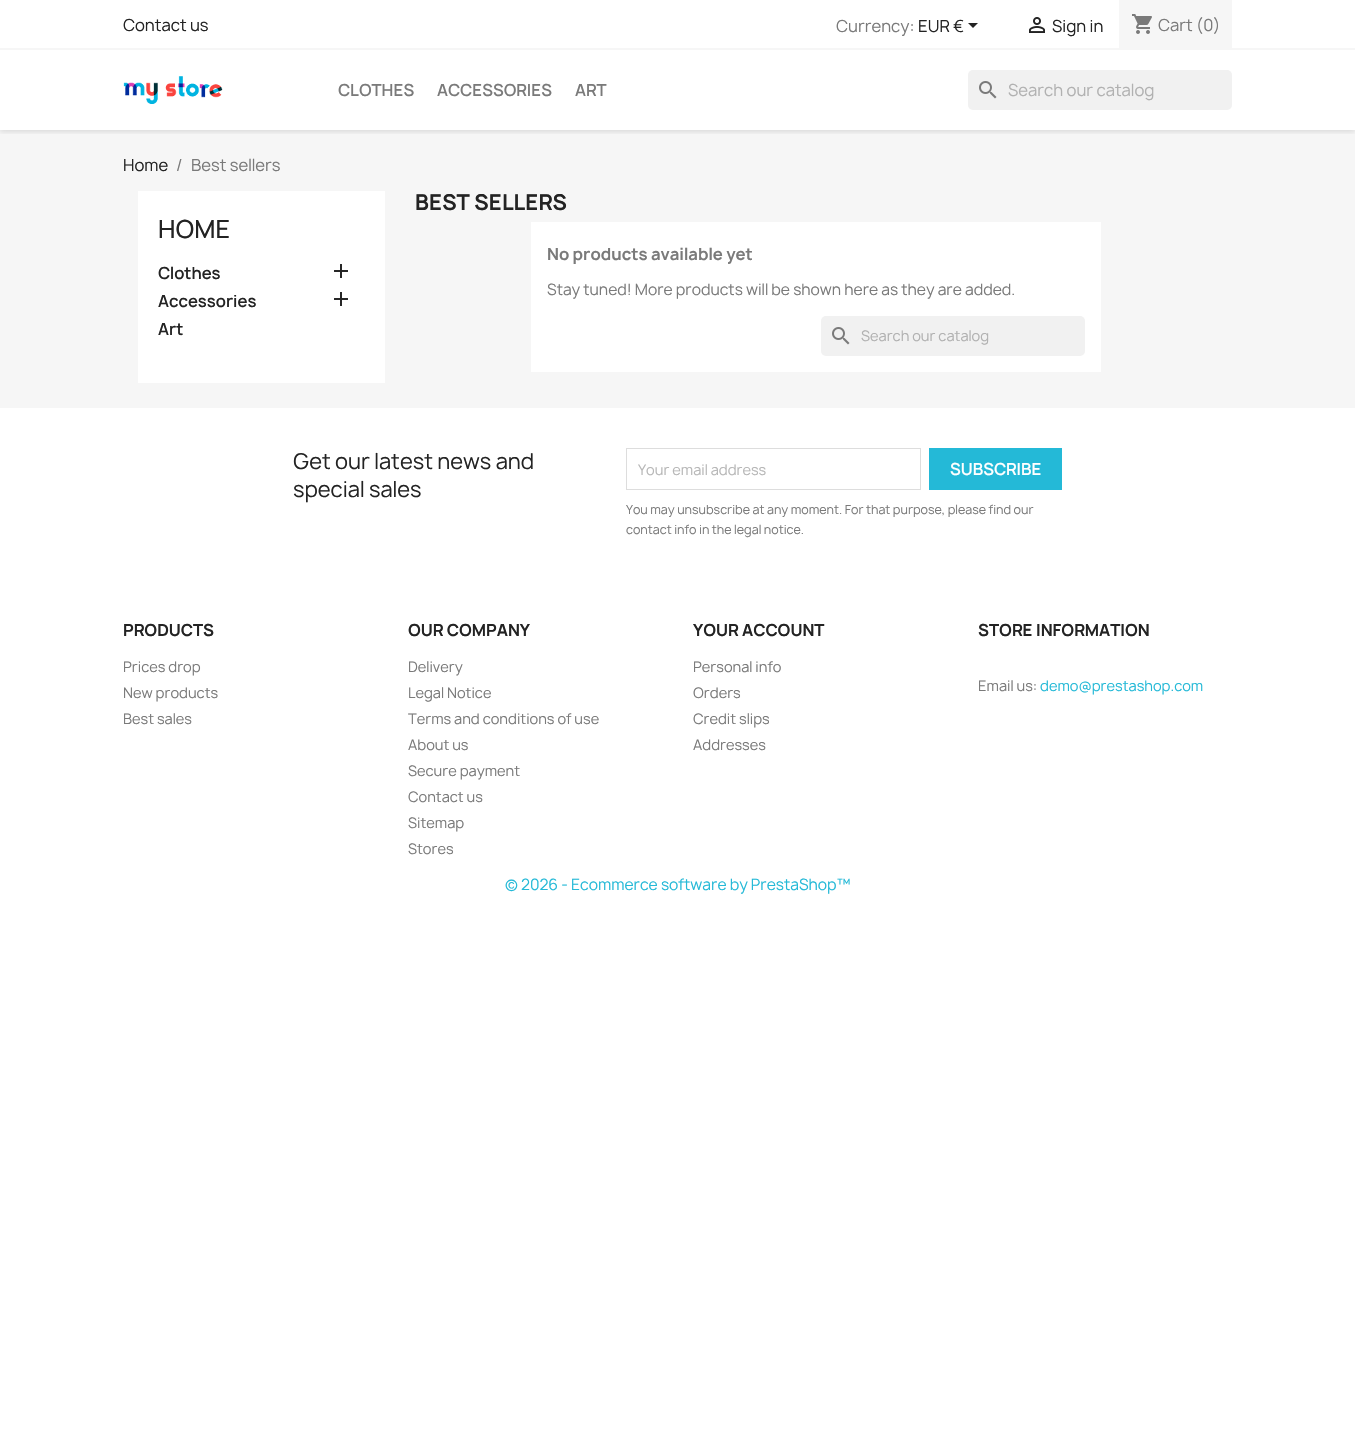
void draw(SkCanvas* canvas) {
    SkPaint paint;
    paint.setAntiAlias(true);
    canvas->clear(0xFFFFFFFF);
    paint.setColor(0xFFF6F6F6);
    canvas->drawRect(SkRect::MakeXYWH(0, 130, 1355, 278), paint);
    canvas->save();
    canvas->clipRect(SkRect::MakeXYWH(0, 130, 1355, 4));
    paint.setColor(0x1C000000);
    paint.setMaskFilter(SkMaskFilter::MakeBlur(kNormal_SkBlurStyle, 2.5f));
    canvas->drawRect(SkRect::MakeXYWH(0, 2, 1355, 130), paint);
    paint.setMaskFilter(nullptr);
    canvas->restore();
    paint.setColor(0xFFF6F6F6);
    canvas->drawRect(SkRect::MakeXYWH(0, 48, 1355, 2), paint);
    SkFont font1(fontMgr->matchFamilyStyle("Manrope", SkFontStyle::Normal()), 16);
    font1.setSubpixel(true);
    paint.setColor(0xFF232323);
    canvas->drawString("Contact us", 123, 31, font1, paint);
    paint.setColor(0xFF7A7A7A);
    canvas->drawString("Currency:", 836, 32, font1, paint);
    paint.setColor(0xFF232323);
    canvas->drawString("EUR €", 918, 32, font1, paint);
    canvas->drawPath(SkPathBuilder().moveTo(968, 23).lineTo(978, 23).lineTo(973, 28).close().detach(), paint);
    canvas->drawImageRect(SkImages::DeferredFromEncodedData(SkData::MakeFromFileName("img1.png")), SkRect::MakeXYWH(1029, 17, 16, 16), SkSamplingOptions());
    canvas->drawString("Sign in", 1052, 32, font1, paint);
    paint.setColor(0xFFF6F6F6);
    canvas->drawRect(SkRect::MakeXYWH(1119, 0, 113, 48), paint);
    canvas->drawImageRect(SkImages::DeferredFromEncodedData(SkData::MakeFromFileName("img2.png")), SkRect::MakeXYWH(1132, 14, 20, 20), SkSamplingOptions());
    paint.setColor(0xFF7A7A7A);
    canvas->drawString("Cart (0)", 1158, 31, font1, paint);
    canvas->drawImageRect(SkImages::DeferredFromEncodedData(SkData::MakeFromFileName("img3.png")), SkRect::MakeXYWH(123, 76, 100, 28), SkSamplingOptions());
    SkFont font2(fontMgr->matchFamilyStyle("Manrope", SkFontStyle(600, SkFontStyle::kNormal_Width, SkFontStyle::kUpright_Slant)), 16);
    font2.setSubpixel(true);
    canvas->drawString("CLOTHES", 338, 96, font2, paint);
    canvas->drawString("ACCESSORIES", 437, 96, font2, paint);
    canvas->drawString("ART", 575, 96, font2, paint);
    paint.setColor(0xFFF1F1F1);
    canvas->drawRoundRect(SkRect::MakeXYWH(968, 70, 264, 40), 5, 5, paint);
    canvas->drawImageRect(SkImages::DeferredFromEncodedData(SkData::MakeFromFileName("img4.png")), SkRect::MakeXYWH(979, 81, 18, 18), SkSamplingOptions());
    paint.setColor(0xFFB1B1B1);
    canvas->drawString("Search our catalog", 1008, 96, font1, paint);
    paint.setColor(0xFF232323);
    canvas->drawString("Home", 123, 171, font1, paint);
    paint.setColor(0xFF7A7A7A);
    canvas->drawString("/", 176, 171, font1, paint);
    canvas->drawString("Best sellers", 191, 171, font1, paint);
    paint.setColor(0xFFFFFFFF);
    canvas->drawRect(SkRect::MakeXYWH(138, 191, 247, 192), paint);
    SkFont font3(fontMgr->matchFamilyStyle("Manrope", SkFontStyle(500, SkFontStyle::kNormal_Width, SkFontStyle::kUpright_Slant)), 24);
    font3.setSubpixel(true);
    paint.setColor(0xFF232323);
    canvas->drawString("HOME", 158, 238, font3, paint);
    canvas->drawString("Clothes", 158, 279, font2, paint);
    canvas->drawImageRect(SkImages::DeferredFromEncodedData(SkData::MakeFromFileName("img5.png")), SkRect::MakeXYWH(334, 264, 14, 14), SkSamplingOptions());
    canvas->drawString("Accessories", 158, 307, font2, paint);
    canvas->drawImageRect(SkImages::DeferredFromEncodedData(SkData::MakeFromFileName("img5.png")), SkRect::MakeXYWH(334, 292, 14, 14), SkSamplingOptions());
    canvas->drawString("Art", 158, 335, font2, paint);
    SkFont font4(fontMgr->matchFamilyStyle("Manrope", SkFontStyle::Bold()), 21);
    font4.setSubpixel(true);
    canvas->drawString("BEST SELLERS", 415, 210, font4, paint);
    paint.setColor(0xFFFFFFFF);
    canvas->drawRect(SkRect::MakeXYWH(531, 222, 570, 150), paint);
    SkFont font5(fontMgr->matchFamilyStyle("Manrope", SkFontStyle::Bold()), 16);
    font5.setSubpixel(true);
    paint.setColor(0xFF7A7A7A);
    canvas->drawString("No products available yet", 547, 260, font5, paint);
    SkFont font6(fontMgr->matchFamilyStyle("Manrope", SkFontStyle::Normal()), 15);
    font6.setSubpixel(true);
    canvas->drawString("Stay tuned! More products will be shown here as they are added.", 547, 295, font6, paint);
    paint.setColor(0xFFF1F1F1);
    canvas->drawRoundRect(SkRect::MakeXYWH(821, 316, 264, 40), 5, 5, paint);
    canvas->drawImageRect(SkImages::DeferredFromEncodedData(SkData::MakeFromFileName("img4.png")), SkRect::MakeXYWH(832, 327, 18, 18), SkSamplingOptions());
    SkFont font7(fontMgr->matchFamilyStyle("Manrope", SkFontStyle::Normal()), 14);
    font7.setSubpixel(true);
    paint.setColor(0xFFB1B1B1);
    canvas->drawString("Search our catalog", 861, 341, font7, paint);
    SkFont font8(fontMgr->matchFamilyStyle("Manrope", SkFontStyle::Normal()), 21);
    font8.setSubpixel(true);
    paint.setColor(0xFF232323);
    canvas->drawString("Get our latest news and", 293, 469, font8, paint);
    canvas->drawString("special sales", 293, 497, font8, paint);
    paint.setStyle(SkPaint::kStroke_Style);
    paint.setStrokeWidth(1);
    paint.setColor(0xFFDDDDDD);
    canvas->drawRect(SkRect::MakeXYWH(626.5f, 448.5f, 294, 41), paint);
    paint.setStyle(SkPaint::kFill_Style);
    paint.setColor(0xFFB7B7B7);
    canvas->drawString("Your email address", 638, 475, font7, paint);
    paint.setColor(0xFF24B9D7);
    canvas->drawRect(SkRect::MakeXYWH(929, 448, 133, 42), paint);
    paint.setColor(0xFFFFFFFF);
    canvas->drawString("SUBSCRIBE", 950, 475, font2, paint);
    SkFont font9(fontMgr->matchFamilyStyle("Manrope", SkFontStyle::Normal()), 12);
    font9.setSubpixel(true);
    paint.setColor(0xFF7A7A7A);
    canvas->drawString("You may unsubscribe at any moment. For that purpose, please find our", 626, 514, font9, paint);
    canvas->drawString("contact info in the legal notice.", 626, 534, font9, paint);
    paint.setColor(0xFF232323);
    canvas->drawString("PRODUCTS", 123, 636, font5, paint);
    paint.setColor(0xFF7A7A7A);
    canvas->drawString("Prices drop", 123, 672, font7, paint);
    canvas->drawString("New products", 123, 698, font7, paint);
    canvas->drawString("Best sales", 123, 724, font7, paint);
    paint.setColor(0xFF232323);
    canvas->drawString("OUR COMPANY", 408, 636, font5, paint);
    paint.setColor(0xFF7A7A7A);
    canvas->drawString("Delivery", 408, 672, font7, paint);
    canvas->drawString("Legal Notice", 408, 698, font7, paint);
    canvas->drawString("Terms and conditions of use", 408, 724, font7, paint);
    canvas->drawString("About us", 408, 750, font7, paint);
    canvas->drawString("Secure payment", 408, 776, font7, paint);
    canvas->drawString("Contact us", 408, 802, font7, paint);
    canvas->drawString("Sitemap", 408, 828, font7, paint);
    canvas->drawString("Stores", 408, 854, font7, paint);
    paint.setColor(0xFF232323);
    canvas->drawString("YOUR ACCOUNT", 693, 636, font5, paint);
    paint.setColor(0xFF7A7A7A);
    canvas->drawString("Personal info", 693, 672, font7, paint);
    canvas->drawString("Orders", 693, 698, font7, paint);
    canvas->drawString("Credit slips", 693, 724, font7, paint);
    canvas->drawString("Addresses", 693, 750, font7, paint);
    paint.setColor(0xFF232323);
    canvas->drawString("STORE INFORMATION", 978, 636, font5, paint);
    paint.setColor(0xFF7A7A7A);
    canvas->drawString("Email us:", 978, 691, font7, paint);
    paint.setColor(0xFF24B9D7);
    canvas->drawString("demo@prestashop.com", 1040, 691, font7, paint);
    canvas->drawString("© 2026 - Ecommerce software by PrestaShop™", 505, 890, font6, paint);
}
